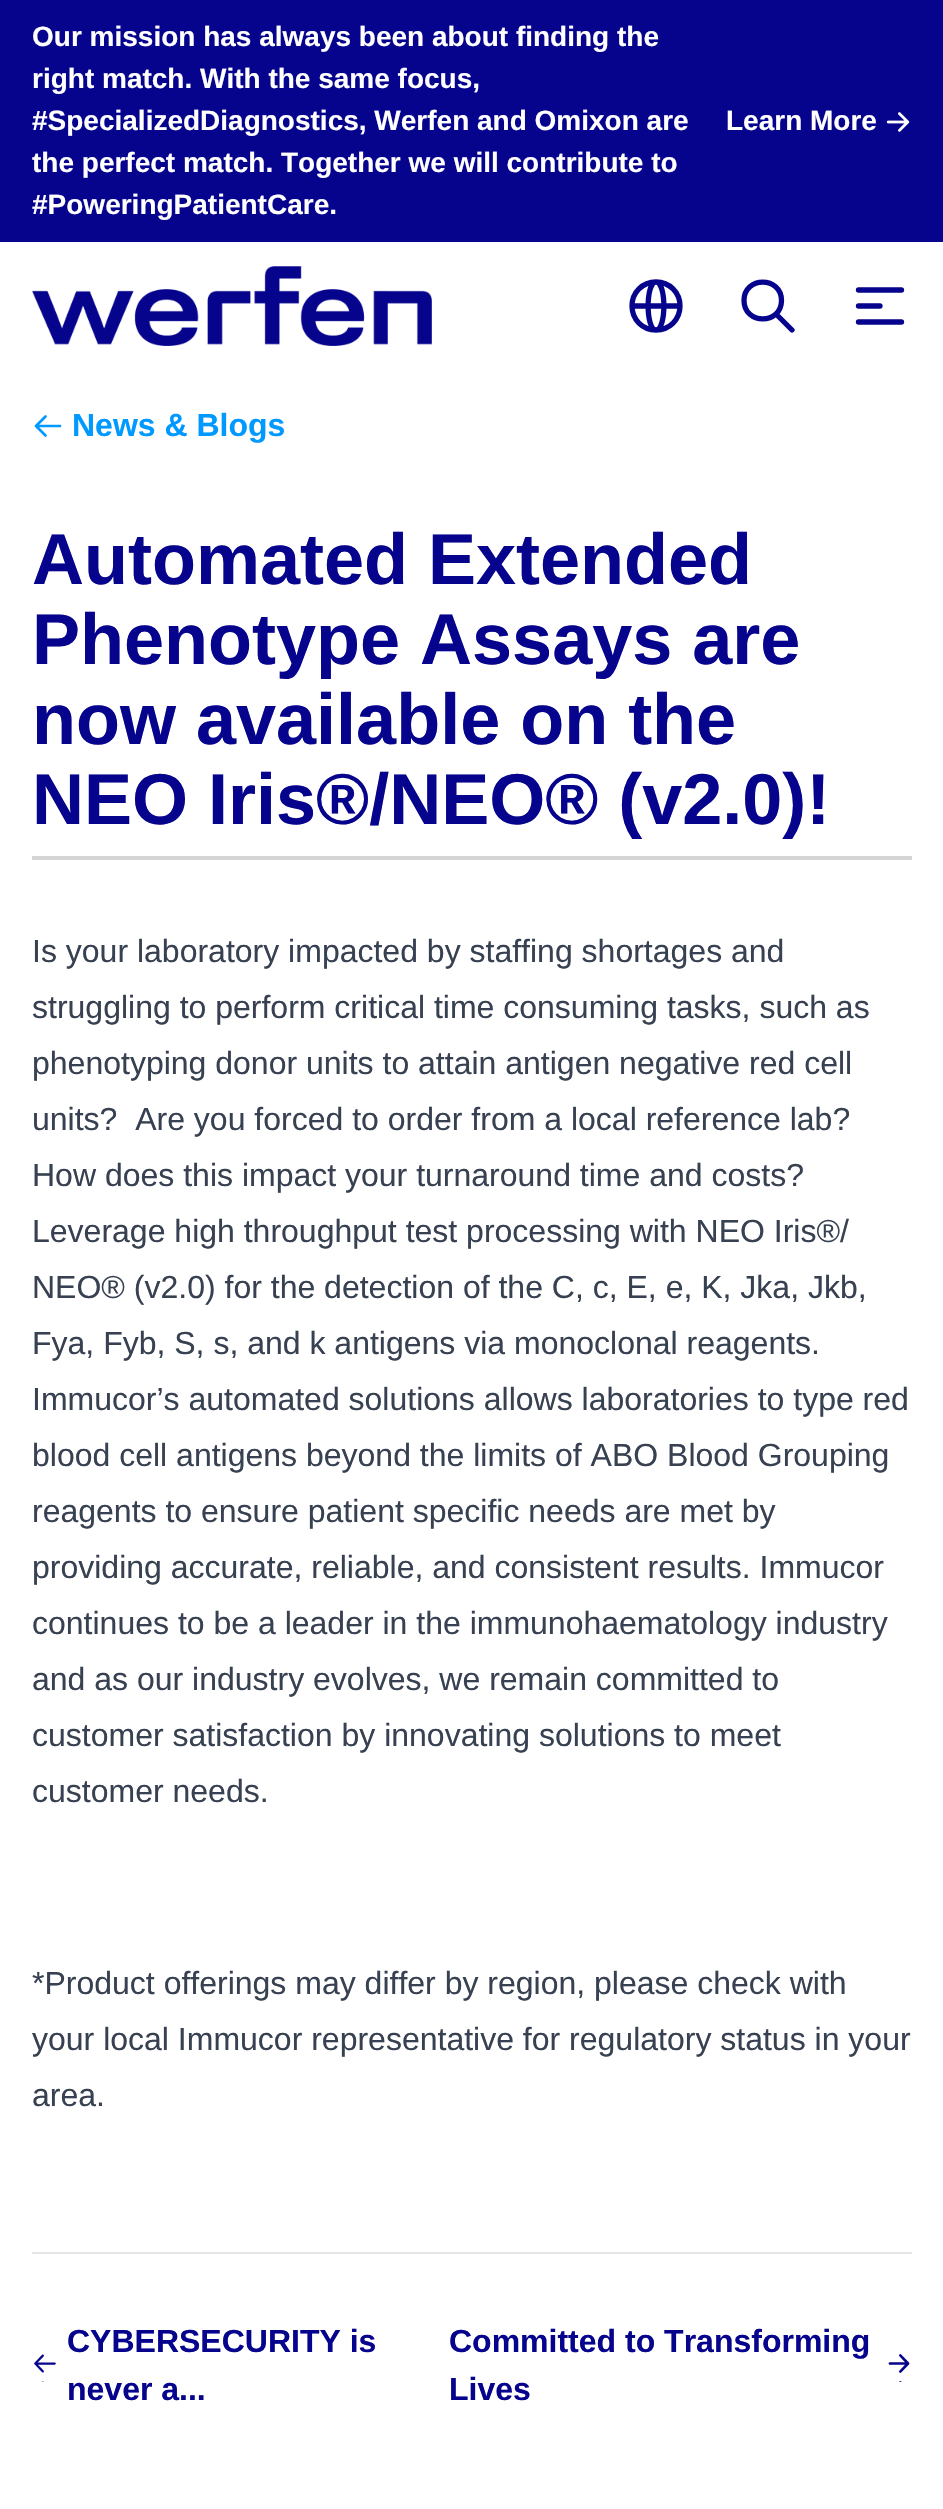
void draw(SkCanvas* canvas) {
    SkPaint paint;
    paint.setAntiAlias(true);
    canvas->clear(0xFFFFFFFF);
    paint.setColor(0xFF06038D);
    canvas->drawRect(SkRect::MakeXYWH(0, 0, 943, 242), paint);
    SkFont font1(fontMgr->matchFamilyStyle("Liberation Sans", SkFontStyle::Bold()), 28);
    font1.setSubpixel(true);
    paint.setColor(0xFFFFFFFF);
    canvas->drawString("Our mission has always been about finding the", 32, 46, font1, paint);
    canvas->drawString("right match. With the same focus,", 32, 88, font1, paint);
    canvas->drawString("#SpecializedDiagnostics, Werfen and Omixon are", 32, 130, font1, paint);
    canvas->drawString("the perfect match. Together we will contribute to", 32, 172, font1, paint);
    canvas->drawString("#PoweringPatientCare.", 32, 214, font1, paint);
    canvas->drawString("Learn More", 726, 130, font1, paint);
    canvas->drawImageRect(SkImages::DeferredFromEncodedData(SkData::MakeFromFileName("img1.png")), SkRect::MakeXYWH(886, 112, 24, 20), SkSamplingOptions());
    canvas->drawImageRect(SkImages::DeferredFromEncodedData(SkData::MakeFromFileName("img2.png")), SkRect::MakeXYWH(32, 266, 400, 80), SkSamplingOptions());
    paint.setStyle(SkPaint::kStroke_Style);
    paint.setStrokeWidth(5.3f);
    paint.setStrokeCap(SkPaint::kRound_Cap);
    paint.setStrokeJoin(SkPaint::kRound_Join);
    paint.setColor(0xFF06038D);
    canvas->drawPath(SkPathBuilder().moveTo(680, 306).cubicTo(680, 319.5f, 669.5f, 330, 656, 330).moveTo(680, 306).cubicTo(680, 292.5f, 669.5f, 282, 656, 282).moveTo(680, 306).lineTo(632, 306).moveTo(656, 330).cubicTo(642.5f, 330, 632, 319.5f, 632, 306).moveTo(656, 330).cubicTo(666.5f, 330, 666.5f, 282, 656, 282).moveTo(656, 330).cubicTo(645.5f, 330, 645.5f, 282, 656, 282).moveTo(632, 306).cubicTo(632, 292.5f, 642.5f, 282, 656, 282).detach(), paint);
    canvas->drawPath(SkPathBuilder().moveTo(792, 330).lineTo(776, 314).moveTo(781.5f, 300.5f).cubicTo(781.5f, 325, 744, 325, 744, 300.5f).cubicTo(744, 276, 781.5f, 276, 781.5f, 300.5f).close().detach(), paint);
    canvas->drawPath(SkPathBuilder().moveTo(858.5f, 290).lineTo(901.5f, 290).moveTo(858.5f, 306).lineTo(880, 306).moveTo(858.5f, 322).lineTo(901.5f, 322).detach(), paint);
    paint.setStrokeWidth(2.7f);
    paint.setColor(0xFF0099FF);
    canvas->drawPath(SkPathBuilder().moveTo(45.5f, 435.5f).lineTo(36, 426).moveTo(36, 426).lineTo(45.5f, 416.5f).moveTo(36, 426).lineTo(60, 426).detach(), paint);
    SkFont font2(fontMgr->matchFamilyStyle("Liberation Sans", SkFontStyle::Bold()), 32);
    font2.setSubpixel(true);
    paint.setStyle(SkPaint::kFill_Style);
    canvas->drawString("News & Blogs", 72, 436, font2, paint);
    paint.setColor(0xFFD4D4D4);
    canvas->drawRect(SkRect::MakeXYWH(32, 856, 880, 4), paint);
    SkFont font3(fontMgr->matchFamilyStyle("Liberation Sans", SkFontStyle::Bold()), 72);
    font3.setSubpixel(true);
    paint.setColor(0xFF06038D);
    canvas->drawString("Automated Extended", 32, 584, font3, paint);
    canvas->drawString("Phenotype Assays are", 32, 664, font3, paint);
    canvas->drawString("now available on the", 32, 744, font3, paint);
    canvas->drawString("NEO Iris®/NEO® (v2.0)!", 32, 824, font3, paint);
    SkFont font4(fontMgr->matchFamilyStyle("Liberation Sans", SkFontStyle::Normal()), 32);
    font4.setSubpixel(true);
    paint.setColor(0xFF374151);
    canvas->drawString("Is your laboratory impacted by staffing shortages and", 32, 962, font4, paint);
    canvas->drawString("struggling to perform critical time consuming tasks, such as", 32, 1018, font4, paint);
    canvas->drawString("phenotyping donor units to attain antigen negative red cell", 32, 1074, font4, paint);
    canvas->drawString("units?  Are you forced to order from a local reference lab?", 32, 1130, font4, paint);
    canvas->drawString("How does this impact your turnaround time and costs?", 32, 1186, font4, paint);
    canvas->drawString("Leverage high throughput test processing with NEO Iris®/", 32, 1242, font4, paint);
    canvas->drawString("NEO® (v2.0) for the detection of the C, c, E, e, K, Jka, Jkb,", 32, 1298, font4, paint);
    canvas->drawString("Fya, Fyb, S, s, and k antigens via monoclonal reagents.", 32, 1354, font4, paint);
    canvas->drawString("Immucor’s automated solutions allows laboratories to type red", 32, 1410, font4, paint);
    canvas->drawString("blood cell antigens beyond the limits of ABO Blood Grouping", 32, 1466, font4, paint);
    canvas->drawString("reagents to ensure patient specific needs are met by", 32, 1522, font4, paint);
    canvas->drawString("providing accurate, reliable, and consistent results. Immucor", 32, 1578, font4, paint);
    canvas->drawString("continues to be a leader in the immunohaematology industry", 32, 1634, font4, paint);
    canvas->drawString("and as our industry evolves, we remain committed to", 32, 1690, font4, paint);
    canvas->drawString("customer satisfaction by innovating solutions to meet", 32, 1746, font4, paint);
    canvas->drawString("customer needs.", 32, 1802, font4, paint);
    canvas->drawString("*Product offerings may differ by region, please check with", 32, 1994, font4, paint);
    canvas->drawString("your local Immucor representative for regulatory status in your", 32, 2050, font4, paint);
    canvas->drawString("area.", 32, 2106, font4, paint);
    paint.setColor(0xFFE5E5E5);
    canvas->drawRect(SkRect::MakeXYWH(32, 2252, 880, 2), paint);
    paint.setColor(0xFF06038D);
    canvas->drawString("CYBERSECURITY is", 67, 2352, font2, paint);
    canvas->drawImageRect(SkImages::DeferredFromEncodedData(SkData::MakeFromFileName("img3.png")), SkRect::MakeXYWH(34, 2354, 22, 28), SkSamplingOptions());
    canvas->drawString("never a...", 67, 2400, font2, paint);
    canvas->drawString("Committed to Transforming", 449, 2352, font2, paint);
    canvas->drawImageRect(SkImages::DeferredFromEncodedData(SkData::MakeFromFileName("img4.png")), SkRect::MakeXYWH(888, 2354, 22, 28), SkSamplingOptions());
    canvas->drawString("Lives", 449, 2400, font2, paint);
}
